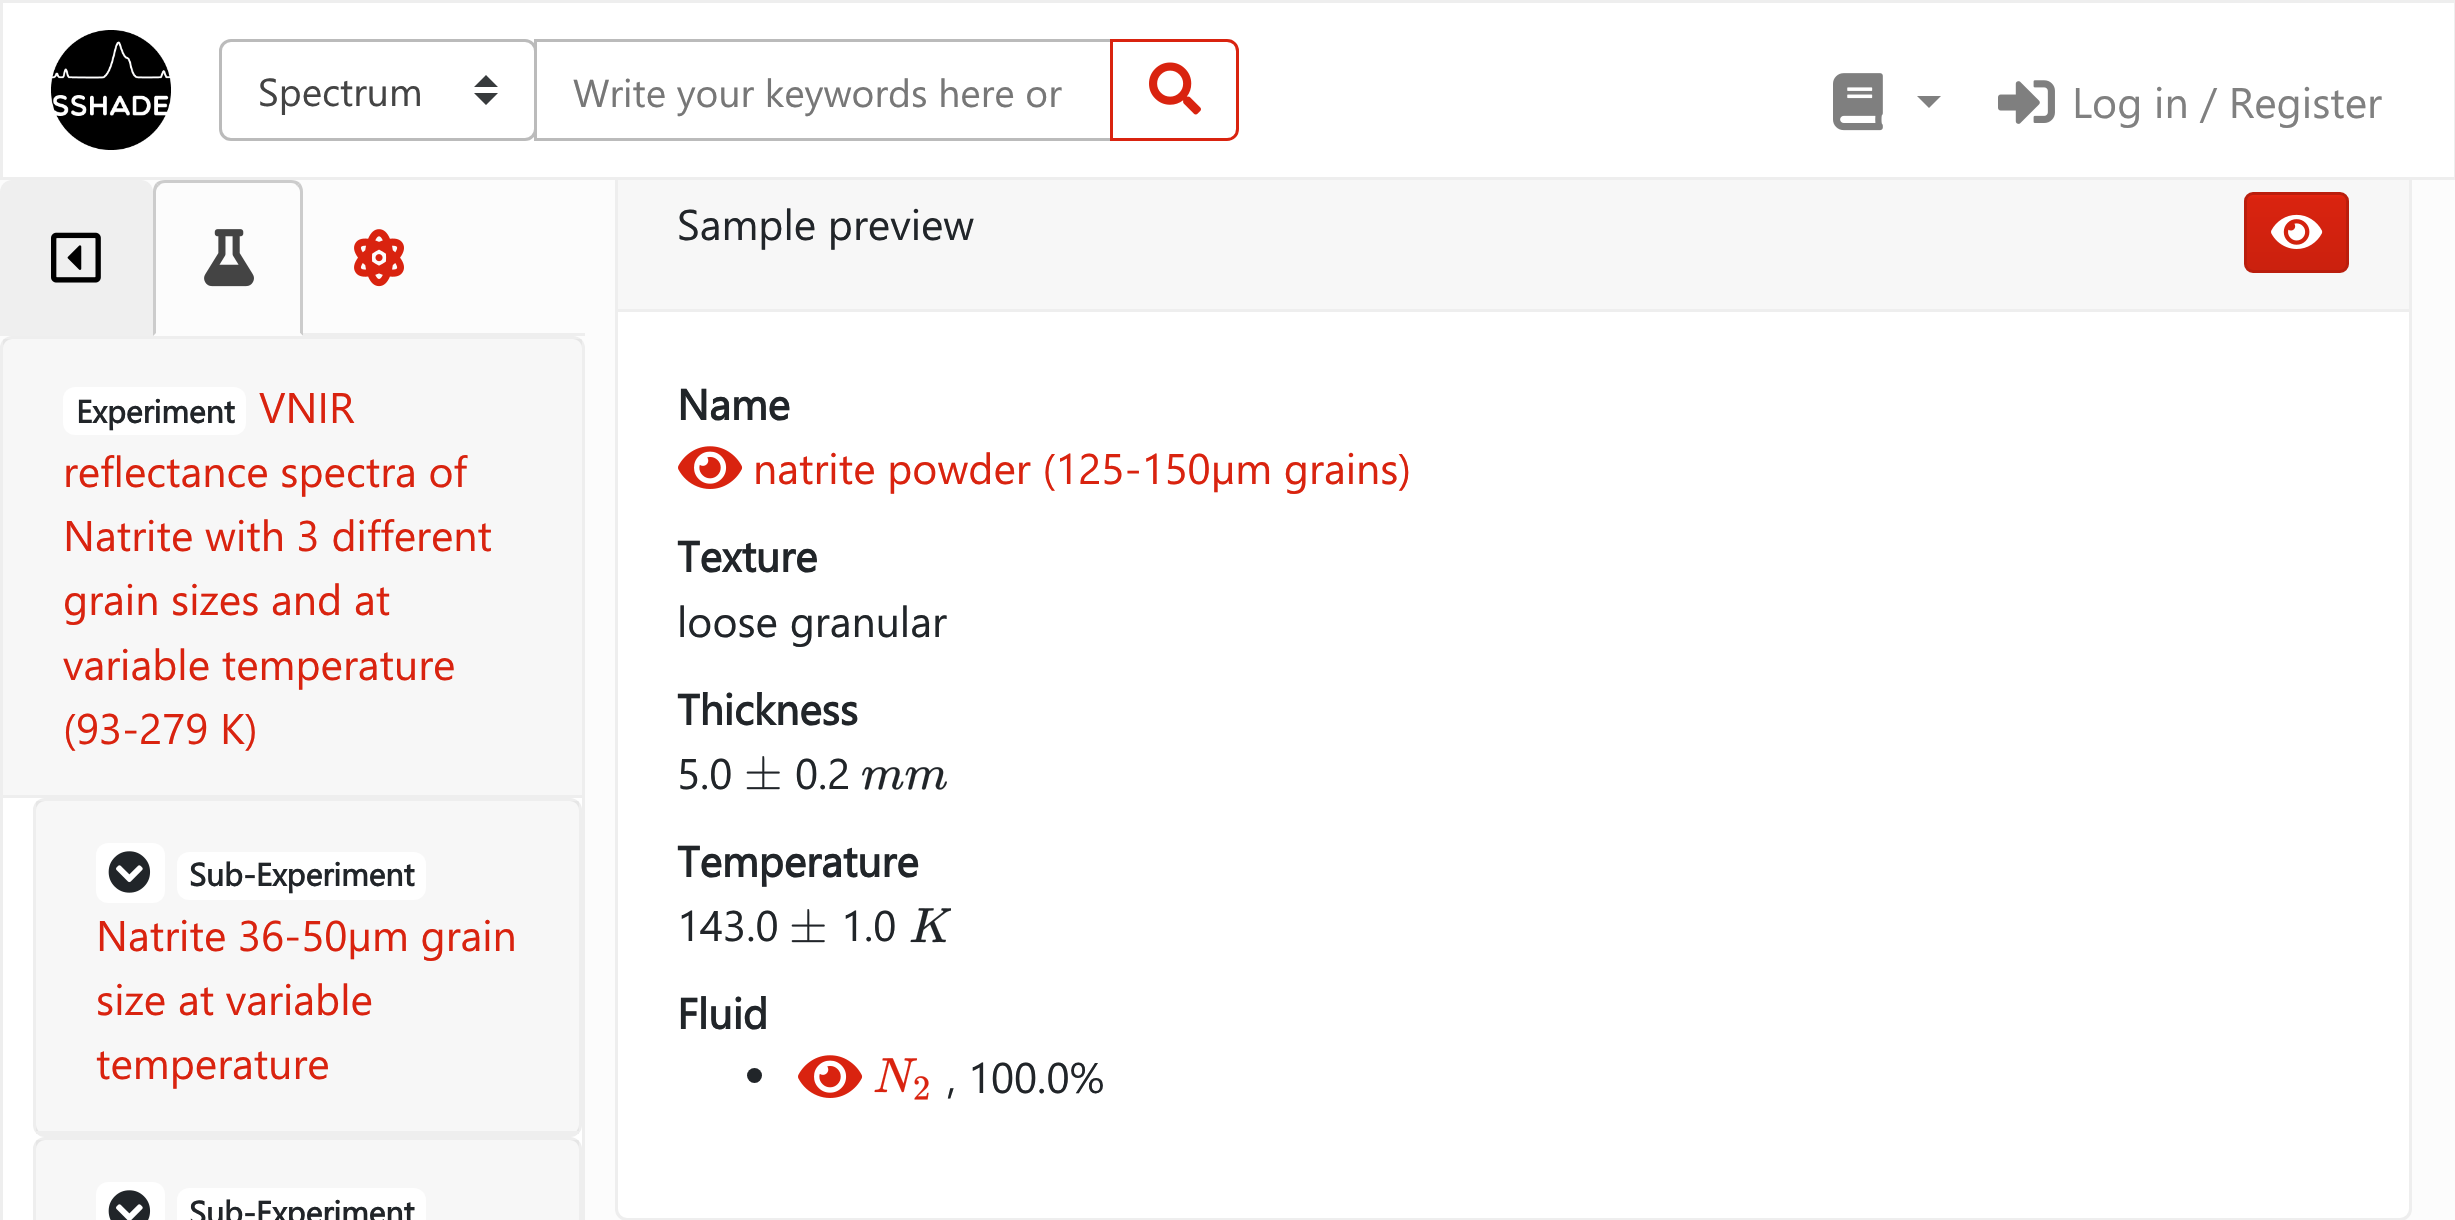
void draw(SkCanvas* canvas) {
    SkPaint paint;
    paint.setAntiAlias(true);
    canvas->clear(0xFFFCFCFC);
    paint.setColor(0xFFFFFFFF);
    canvas->drawRoundRect(SkRect::MakeXYWH(616.5f, 154.5f, 1794, 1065), 10.5f, 10.5f, paint);
    paint.setStyle(SkPaint::kStroke_Style);
    paint.setStrokeWidth(3);
    paint.setColor(0xFFEEEEEE);
    canvas->drawRoundRect(SkRect::MakeXYWH(616.5f, 154.5f, 1794, 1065), 10.5f, 10.5f, paint);
    paint.setStyle(SkPaint::kFill_Style);
    paint.setColor(0xFFFFFFFF);
    canvas->drawRect(SkRect::MakeXYWH(1.5f, 1.5f, 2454, 177), paint);
    paint.setStyle(SkPaint::kStroke_Style);
    paint.setColor(0xFFEEEEEE);
    canvas->drawRect(SkRect::MakeXYWH(1.5f, 1.5f, 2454, 177), paint);
    canvas->drawImageRect(SkImages::DeferredFromEncodedData(SkData::MakeFromFileName("img1.png")), SkRect::MakeXYWH(51, 30, 120, 120), SkSamplingOptions());
    paint.setStyle(SkPaint::kFill_Style);
    paint.setColor(0xFF373A3C);
    canvas->drawPath(SkPathBuilder().moveTo(486, 75).lineTo(474, 87).lineTo(498, 87).close().moveTo(486, 105).lineTo(474, 93).lineTo(498, 93).close().detach(), paint);
    paint.setStyle(SkPaint::kStroke_Style);
    paint.setColor(0xFFBBBBBB);
    canvas->drawRoundRect(SkRect::MakeXYWH(220.5f, 40.5f, 315, 99), 10.5f, 10.5f, paint);
    SkFont font1(fontMgr->matchFamilyStyle("Segoe UI", SkFontStyle::Normal()), 39);
    font1.setSubpixel(true);
    paint.setStyle(SkPaint::kFill_Style);
    paint.setColor(0xFF444444);
    canvas->drawString("Spectrum", 258, 106, font1, paint);
    paint.setStyle(SkPaint::kStroke_Style);
    paint.setColor(0xFFBBBBBB);
    canvas->drawRect(SkRect::MakeXYWH(535.5f, 40.5f, 576, 99), paint);
    paint.setStyle(SkPaint::kFill_Style);
    paint.setColor(0xFF777777);
    canvas->drawString("Write your keywords here or", 573, 107, font1, paint);
    paint.setStyle(SkPaint::kStroke_Style);
    paint.setColor(0xFFD9230F);
    canvas->drawPath(SkPathBuilder().moveTo(1111.5f, 40.5f).lineTo(1227, 40.5f).cubicTo(1233, 40.5f, 1237.5f, 45, 1237.5f, 51).lineTo(1237.5f, 129).cubicTo(1237.5f, 135, 1233, 139.5f, 1227, 139.5f).lineTo(1111.5f, 139.5f).close().detach(), paint);
    canvas->drawImageRect(SkImages::DeferredFromEncodedData(SkData::MakeFromFileName("img2.png")), SkRect::MakeXYWH(1149, 62, 52, 53), SkSamplingOptions());
    canvas->drawImageRect(SkImages::DeferredFromEncodedData(SkData::MakeFromFileName("img3.png")), SkRect::MakeXYWH(1833, 73, 50, 58), SkSamplingOptions());
    paint.setStyle(SkPaint::kFill_Style);
    paint.setColor(0xFF808080);
    canvas->drawPath(SkPathBuilder().moveTo(1917, 96).lineTo(1941, 96).lineTo(1929, 108).close().detach(), paint);
    canvas->drawImageRect(SkImages::DeferredFromEncodedData(SkData::MakeFromFileName("img4.png")), SkRect::MakeXYWH(1998, 80, 57, 44), SkSamplingOptions());
    SkFont font2(fontMgr->matchFamilyStyle("Segoe UI", SkFontStyle::Normal()), 42.75f);
    font2.setSubpixel(true);
    canvas->drawString("Log in / Register", 2072, 118, font2, paint);
    paint.setColor(0xFFEEEEEE);
    canvas->drawRect(SkRect::MakeXYWH(303, 333, 282, 3), paint);
    paint.setColor(0xFFEFEFEF);
    canvas->drawPath(SkPathBuilder().moveTo(12, 180).lineTo(141, 180).cubicTo(147.5f, 180, 153, 185.5f, 153, 192).lineTo(153, 336).lineTo(0, 336).lineTo(0, 192).cubicTo(0, 185.5f, 5.5f, 180, 12, 180).close().detach(), paint);
    canvas->drawImageRect(SkImages::DeferredFromEncodedData(SkData::MakeFromFileName("img5.png")), SkRect::MakeXYWH(51, 232, 50, 51), SkSamplingOptions());
    paint.setColor(0xFFCCCCCC);
    canvas->drawPath(SkPathBuilder().moveTo(165, 180).cubicTo(162, 180, 158, 181, 156, 183).lineTo(159, 186).cubicTo(160, 184, 162, 183, 165, 183).lineTo(291, 183).cubicTo(294, 183, 296, 184, 297, 186).lineTo(300, 183).cubicTo(298, 181, 294, 180, 291, 180).close().detach(), paint);
    canvas->drawPath(SkPathBuilder().moveTo(303, 336).lineTo(303, 192).cubicTo(303, 188, 302, 186, 300, 183).lineTo(297, 186).cubicTo(299, 187, 300, 190, 300, 192).lineTo(300, 333).close().detach(), paint);
    paint.setColor(0xFFFCFCFC);
    canvas->drawPath(SkPathBuilder().moveTo(303, 336).lineTo(300, 333).lineTo(156, 333).lineTo(153, 336).close().detach(), paint);
    paint.setColor(0xFFCCCCCC);
    canvas->drawPath(SkPathBuilder().moveTo(153, 336).lineTo(156, 333).lineTo(156, 192).cubicTo(156, 190, 157, 187, 159, 186).lineTo(156, 183).cubicTo(154, 186, 153, 188, 153, 192).close().detach(), paint);
    canvas->drawImageRect(SkImages::DeferredFromEncodedData(SkData::MakeFromFileName("img6.png")), SkRect::MakeXYWH(204, 229, 50, 58), SkSamplingOptions());
    canvas->drawImageRect(SkImages::DeferredFromEncodedData(SkData::MakeFromFileName("img7.png")), SkRect::MakeXYWH(354, 229, 50, 58), SkSamplingOptions());
    paint.setColor(0xFFFFFFFF);
    canvas->drawPath(SkPathBuilder().moveTo(12, 336).lineTo(573, 336).cubicTo(579.5f, 336, 585, 341.5f, 585, 348).lineTo(585, 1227).lineTo(0, 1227).lineTo(0, 348).cubicTo(0, 341.5f, 5.5f, 336, 12, 336).close().detach(), paint);
    paint.setStyle(SkPaint::kStroke_Style);
    paint.setColor(0xFFEEEEEE);
    canvas->drawRoundRect(SkRect::MakeXYWH(1.5f, 337.5f, 582, 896), 10.5f, 10.5f, paint);
    paint.setStyle(SkPaint::kFill_Style);
    paint.setColor(0x08000000);
    canvas->drawRect(SkRect::MakeXYWH(3, 339, 579, 456), paint);
    paint.setColor(0xFFEEEEEE);
    canvas->drawRect(SkRect::MakeXYWH(3, 795, 579, 3), paint);
    paint.setColor(0xFFFFFFFF);
    canvas->drawRoundRect(SkRect::MakeXYWH(63, 387, 183, 48), 12, 12, paint);
    SkFont font3(fontMgr->matchFamilyStyle("Segoe UI", SkFontStyle::Bold()), 32);
    font3.setSubpixel(true);
    paint.setColor(0xFF212529);
    canvas->drawString("Experiment", 76, 423, font3, paint);
    paint.setColor(0xFFD9230F);
    canvas->drawString("VNIR", 259, 423, font2, paint);
    canvas->drawString("reflectance spectra of", 63, 487, font2, paint);
    canvas->drawString("Natrite with 3 different", 63, 551, font2, paint);
    canvas->drawString("grain sizes and at", 63, 615, font2, paint);
    canvas->drawString("variable temperature", 63, 680, font2, paint);
    canvas->drawString("(93-279 K)", 63, 744, font2, paint);
    paint.setStyle(SkPaint::kStroke_Style);
    paint.setColor(0xFFEEEEEE);
    canvas->drawRoundRect(SkRect::MakeXYWH(34.5f, 799.5f, 546, 336), 10.5f, 10.5f, paint);
    paint.setStyle(SkPaint::kFill_Style);
    paint.setColor(0x08000000);
    canvas->drawRect(SkRect::MakeXYWH(36, 801, 543, 330), paint);
    paint.setColor(0xFFEEEEEE);
    canvas->drawRect(SkRect::MakeXYWH(36, 1131, 543, 3), paint);
    paint.setColor(0xFFFFFFFF);
    canvas->drawRoundRect(SkRect::MakeXYWH(96, 843, 69, 60), 12, 12, paint);
    canvas->drawImageRect(SkImages::DeferredFromEncodedData(SkData::MakeFromFileName("img8.png")), SkRect::MakeXYWH(108, 851, 43, 42), SkSamplingOptions());
    canvas->drawRoundRect(SkRect::MakeXYWH(177, 852, 249, 48), 12, 12, paint);
    paint.setColor(0xFF212529);
    canvas->drawString("Sub-Experiment", 189, 886, font3, paint);
    paint.setColor(0xFFD9230F);
    canvas->drawString("Natrite 36-50µm grain", 96, 951, font2, paint);
    canvas->drawString("size at variable", 96, 1015, font2, paint);
    canvas->drawString("temperature", 96, 1079, font2, paint);
    paint.setStyle(SkPaint::kStroke_Style);
    paint.setColor(0xFFEEEEEE);
    canvas->drawRoundRect(SkRect::MakeXYWH(34.5f, 1138.5f, 546, 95), 10.5f, 10.5f, paint);
    paint.setStyle(SkPaint::kFill_Style);
    paint.setColor(0x08000000);
    canvas->drawRect(SkRect::MakeXYWH(36, 1140, 543, 80), paint);
    paint.setColor(0xFFFFFFFF);
    canvas->drawPath(SkPathBuilder().moveTo(108, 1182).lineTo(153, 1182).cubicTo(159.5f, 1182, 165, 1187.5f, 165, 1194).lineTo(165, 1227).lineTo(96, 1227).lineTo(96, 1194).cubicTo(96, 1187.5f, 101.5f, 1182, 108, 1182).close().detach(), paint);
    canvas->drawImageRect(SkImages::DeferredFromEncodedData(SkData::MakeFromFileName("img9.png")), SkRect::MakeXYWH(108, 1190, 43, 30), SkSamplingOptions());
    canvas->drawRoundRect(SkRect::MakeXYWH(177, 1188, 249, 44), 12, 12, paint);
    paint.setColor(0xFF212529);
    canvas->drawString("Sub-Experiment", 189, 1224, font3, paint);
    paint.setColor(0x08000000);
    canvas->drawRect(SkRect::MakeXYWH(618, 180, 1791, 129), paint);
    paint.setColor(0xFFEEEEEE);
    canvas->drawRect(SkRect::MakeXYWH(618, 309, 1791, 3), paint);
    paint.setColor(0xFF212529);
    canvas->drawString("Sample preview", 677, 240, font2, paint);
    {
        const SkColor colors[] = {0xFFE72510, 0xFFD9230F, 0xFFCB210E};
        const float stops[] = {0, 0.06f, 1};
        const SkPoint ends[] = {{2297, 195}, {2297, 270}};
        paint.setShader(SkGradientShader::MakeLinear(ends, colors, stops, 3, SkTileMode::kClamp));
        paint.setAlpha(255);
    }
    canvas->drawRect(SkRect::MakeXYWH(2247, 195, 99, 75), paint);
    paint.setStyle(SkPaint::kStroke_Style);
    paint.setShader(nullptr);
    paint.setColor(0xFFBA1E0D);
    canvas->drawRoundRect(SkRect::MakeXYWH(2245.5f, 193.5f, 102, 78), 7.5f, 7.5f, paint);
    canvas->drawImageRect(SkImages::DeferredFromEncodedData(SkData::MakeFromFileName("img10.png")), SkRect::MakeXYWH(2271, 214, 52, 35), SkSamplingOptions());
    SkFont font4(fontMgr->matchFamilyStyle("Segoe UI", SkFontStyle::Bold()), 42.75f);
    font4.setSubpixel(true);
    paint.setStyle(SkPaint::kFill_Style);
    paint.setColor(0xFF212529);
    canvas->drawString("Name", 677, 420, font4, paint);
    canvas->drawImageRect(SkImages::DeferredFromEncodedData(SkData::MakeFromFileName("img11.png")), SkRect::MakeXYWH(678, 446, 65, 43), SkSamplingOptions());
    paint.setColor(0xFFD9230F);
    canvas->drawString("natrite powder (125-150µm grains)", 753, 484, font2, paint);
    paint.setColor(0xFF212529);
    canvas->drawString("Texture", 677, 572, font4, paint);
    canvas->drawString("loose granular", 677, 637, font2, paint);
    canvas->drawString("Thickness", 677, 725, font4, paint);
    canvas->drawString("5.0", 677, 789, font2, paint);
    canvas->drawImageRect(SkImages::DeferredFromEncodedData(SkData::MakeFromFileName("img12.png")), SkRect::MakeXYWH(746, 756, 34, 34), SkSamplingOptions());
    canvas->drawString("0.2", 795, 789, font2, paint);
    canvas->drawImageRect(SkImages::DeferredFromEncodedData(SkData::MakeFromFileName("img13.png")), SkRect::MakeXYWH(862, 767, 85, 23), SkSamplingOptions());
    canvas->drawString("Temperature", 677, 877, font4, paint);
    canvas->drawString("143.0", 677, 941, font2, paint);
    canvas->drawImageRect(SkImages::DeferredFromEncodedData(SkData::MakeFromFileName("img12.png")), SkRect::MakeXYWH(791, 909, 34, 34), SkSamplingOptions());
    canvas->drawString("1.0", 841, 941, font2, paint);
    canvas->drawImageRect(SkImages::DeferredFromEncodedData(SkData::MakeFromFileName("img14.png")), SkRect::MakeXYWH(910, 908, 41, 35), SkSamplingOptions());
    canvas->drawString("Fluid", 677, 1029, font4, paint);
    canvas->drawCircle(754.5f, 1075.5f, 7.5f, paint);
    canvas->drawImageRect(SkImages::DeferredFromEncodedData(SkData::MakeFromFileName("img11.png")), SkRect::MakeXYWH(798, 1055, 65, 43), SkSamplingOptions());
    canvas->drawImageRect(SkImages::DeferredFromEncodedData(SkData::MakeFromFileName("img15.png")), SkRect::MakeXYWH(874, 1058, 55, 42), SkSamplingOptions());
    canvas->drawString(", 100.0%", 947, 1093, font2, paint);
}
